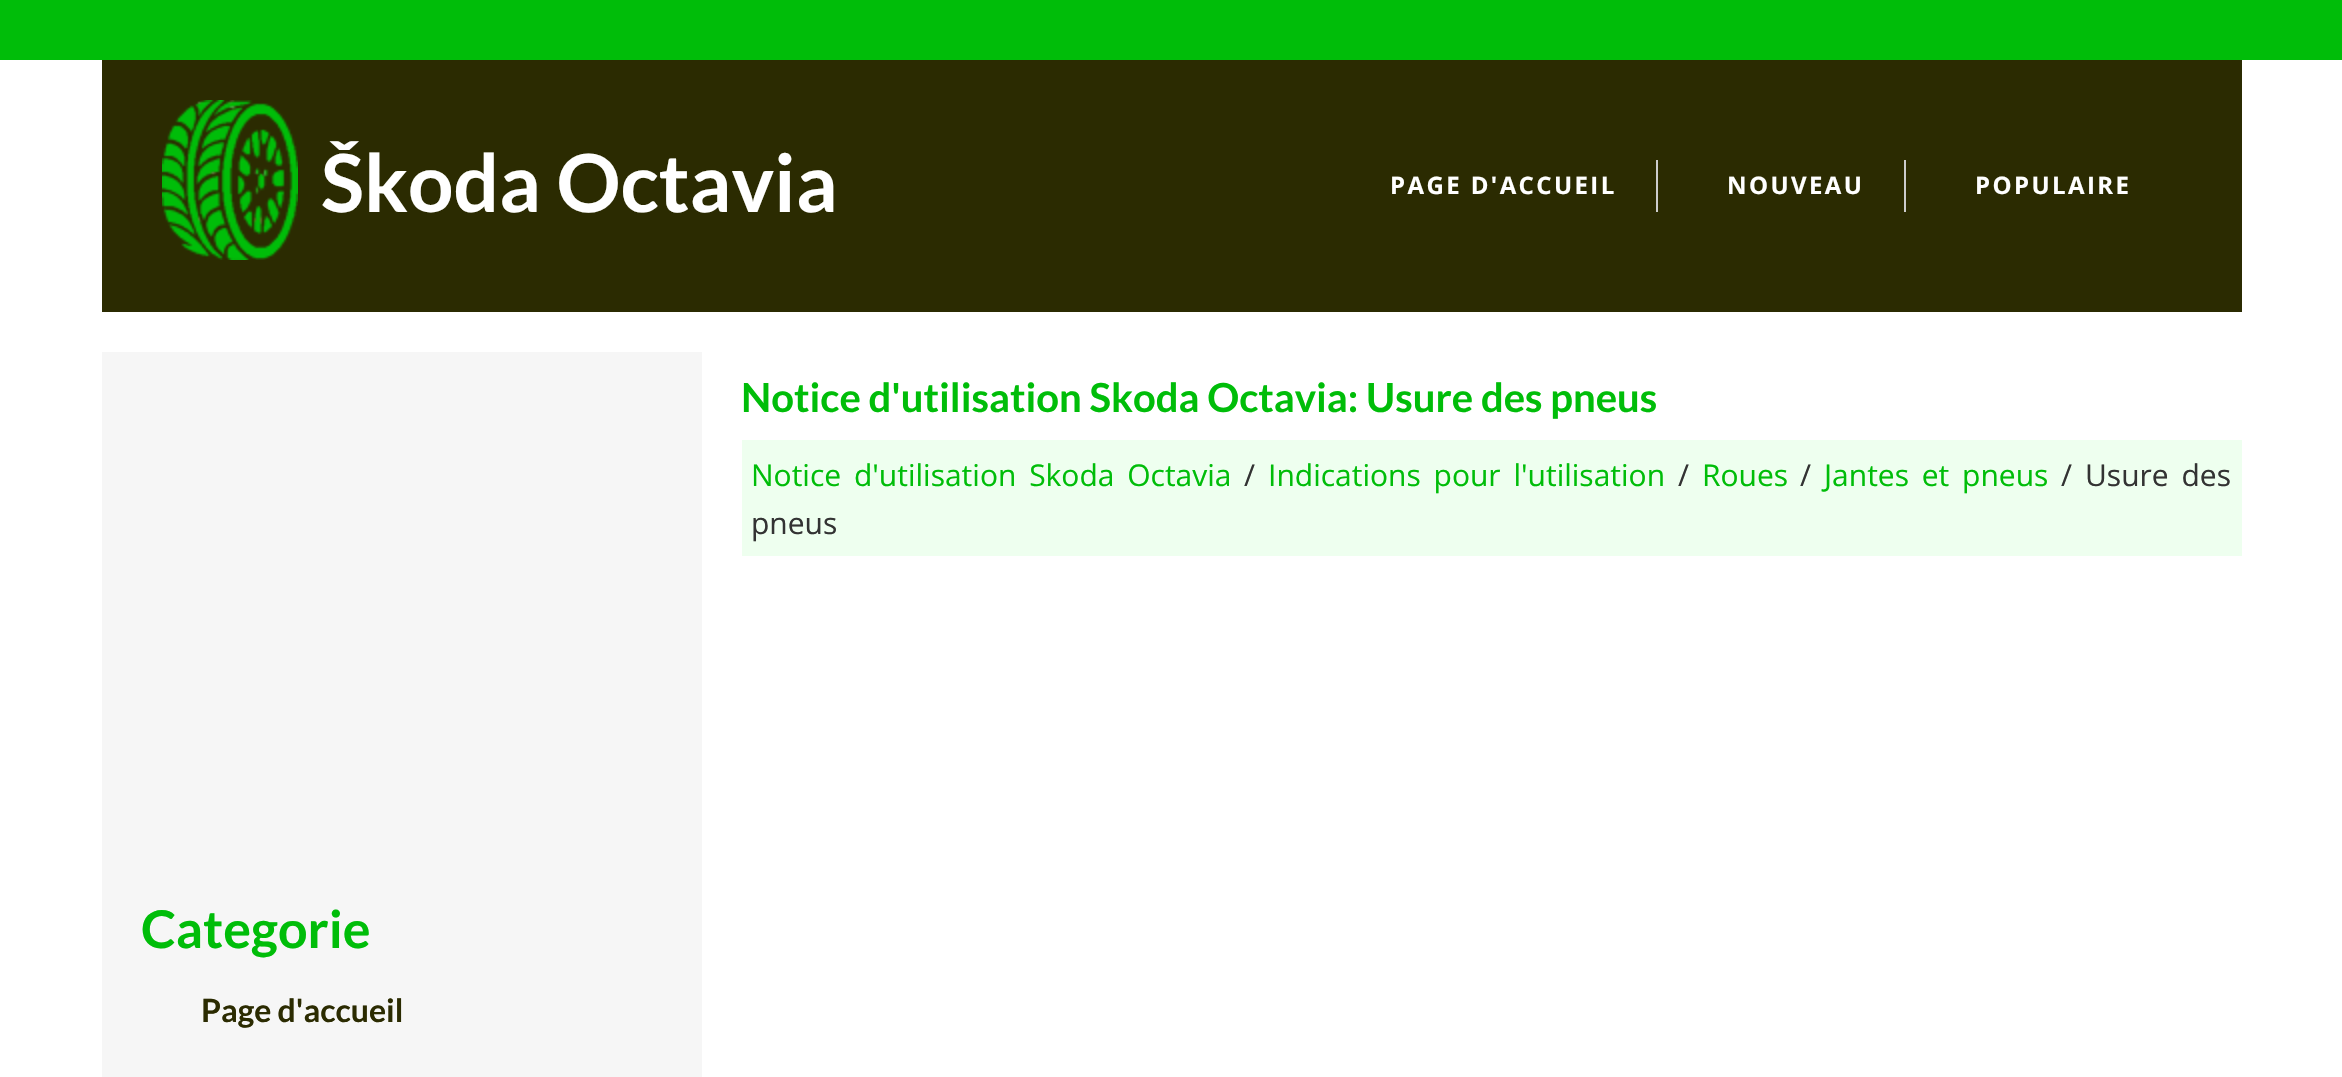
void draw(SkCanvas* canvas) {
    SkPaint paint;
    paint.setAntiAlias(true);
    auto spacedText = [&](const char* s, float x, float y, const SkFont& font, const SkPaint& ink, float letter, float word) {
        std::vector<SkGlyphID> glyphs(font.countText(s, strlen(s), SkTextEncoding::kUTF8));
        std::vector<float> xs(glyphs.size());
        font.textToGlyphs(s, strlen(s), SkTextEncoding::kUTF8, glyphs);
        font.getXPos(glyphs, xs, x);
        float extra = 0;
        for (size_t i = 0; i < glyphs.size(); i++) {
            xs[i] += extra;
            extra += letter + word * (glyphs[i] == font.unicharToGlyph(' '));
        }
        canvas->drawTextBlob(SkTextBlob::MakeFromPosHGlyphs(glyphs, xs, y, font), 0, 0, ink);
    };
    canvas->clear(0xFFFFFFFF);
    paint.setColor(0xFF00BD09);
    canvas->drawRect(SkRect::MakeXYWH(0, 0, 2342, 60), paint);
    paint.setColor(0xFF2B2B01);
    canvas->drawRect(SkRect::MakeXYWH(102, 60, 2140, 252), paint);
    canvas->drawImageRect(SkImages::DeferredFromEncodedData(SkData::MakeFromFileName("img1.png")), SkRect::MakeXYWH(162, 100, 136, 160), SkSamplingOptions());
    SkFont font1(fontMgr->matchFamilyStyle("Lato", SkFontStyle::Bold()), 80);
    font1.setSubpixel(true);
    paint.setColor(0xFFFFFFFF);
    canvas->drawString("Škoda Octavia", 321, 212, font1, paint);
    paint.setColor(0xFFCCCCCC);
    canvas->drawRect(SkRect::MakeXYWH(1656, 160, 2, 52), paint);
    SkFont font2(fontMgr->matchFamilyStyle("Open Sans", SkFontStyle::Bold()), 24);
    font2.setSubpixel(true);
    paint.setColor(0xFFFFFFFF);
    spacedText("PAGE D'ACCUEIL", 1390, 194, font2, paint, 2.4f, 0);
    paint.setColor(0xFFCCCCCC);
    canvas->drawRect(SkRect::MakeXYWH(1904, 160, 2, 52), paint);
    paint.setColor(0xFFFFFFFF);
    spacedText("NOUVEAU", 1727, 194, font2, paint, 2.4f, 0);
    spacedText("POPULAIRE", 1975, 194, font2, paint, 2.4f, 0);
    SkFont font3(fontMgr->matchFamilyStyle("Lato", SkFontStyle::Bold()), 40);
    font3.setSubpixel(true);
    paint.setColor(0xFF00BD09);
    canvas->drawString("Notice d'utilisation Skoda Octavia: Usure des pneus", 741, 412, font3, paint);
    paint.setColor(0xFFEEFFEF);
    canvas->drawRect(SkRect::MakeXYWH(742, 440, 1500, 116), paint);
    SkFont font4(fontMgr->matchFamilyStyle("Open Sans", SkFontStyle::Normal()), 30);
    font4.setSubpixel(true);
    paint.setColor(0xFF00BD09);
    spacedText("Notice d'utilisation Skoda Octavia", 751, 486, font4, paint, 0, 5);
    paint.setColor(0xFF333333);
    canvas->drawString("/", 1244, 486, font4, paint);
    paint.setColor(0xFF00BD09);
    spacedText("Indications pour l'utilisation", 1268, 486, font4, paint, 0, 5);
    paint.setColor(0xFF333333);
    canvas->drawString("/", 1678, 486, font4, paint);
    paint.setColor(0xFF00BD09);
    canvas->drawString("Roues", 1702, 486, font4, paint);
    paint.setColor(0xFF333333);
    canvas->drawString("/", 1800, 486, font4, paint);
    paint.setColor(0xFF00BD09);
    spacedText("Jantes et pneus", 1824, 486, font4, paint, 0, 5);
    paint.setColor(0xFF333333);
    canvas->drawString("/", 2061, 486, font4, paint);
    spacedText("Usure des", 2085, 486, font4, paint, 0, 5);
    canvas->drawString("pneus", 751, 534, font4, paint);
    paint.setColor(0xFFF6F6F6);
    canvas->drawRect(SkRect::MakeXYWH(102, 352, 600, 725), paint);
    SkFont font5(fontMgr->matchFamilyStyle("Lato", SkFontStyle::Bold()), 52);
    font5.setSubpixel(true);
    paint.setColor(0xFF00BD09);
    canvas->drawString("Categorie", 141, 948, font5, paint);
    SkFont font6(fontMgr->matchFamilyStyle("Lato", SkFontStyle::Bold()), 32);
    font6.setSubpixel(true);
    paint.setColor(0xFF2B2B01);
    canvas->drawString("Page d'accueil", 201, 1022, font6, paint);
}
